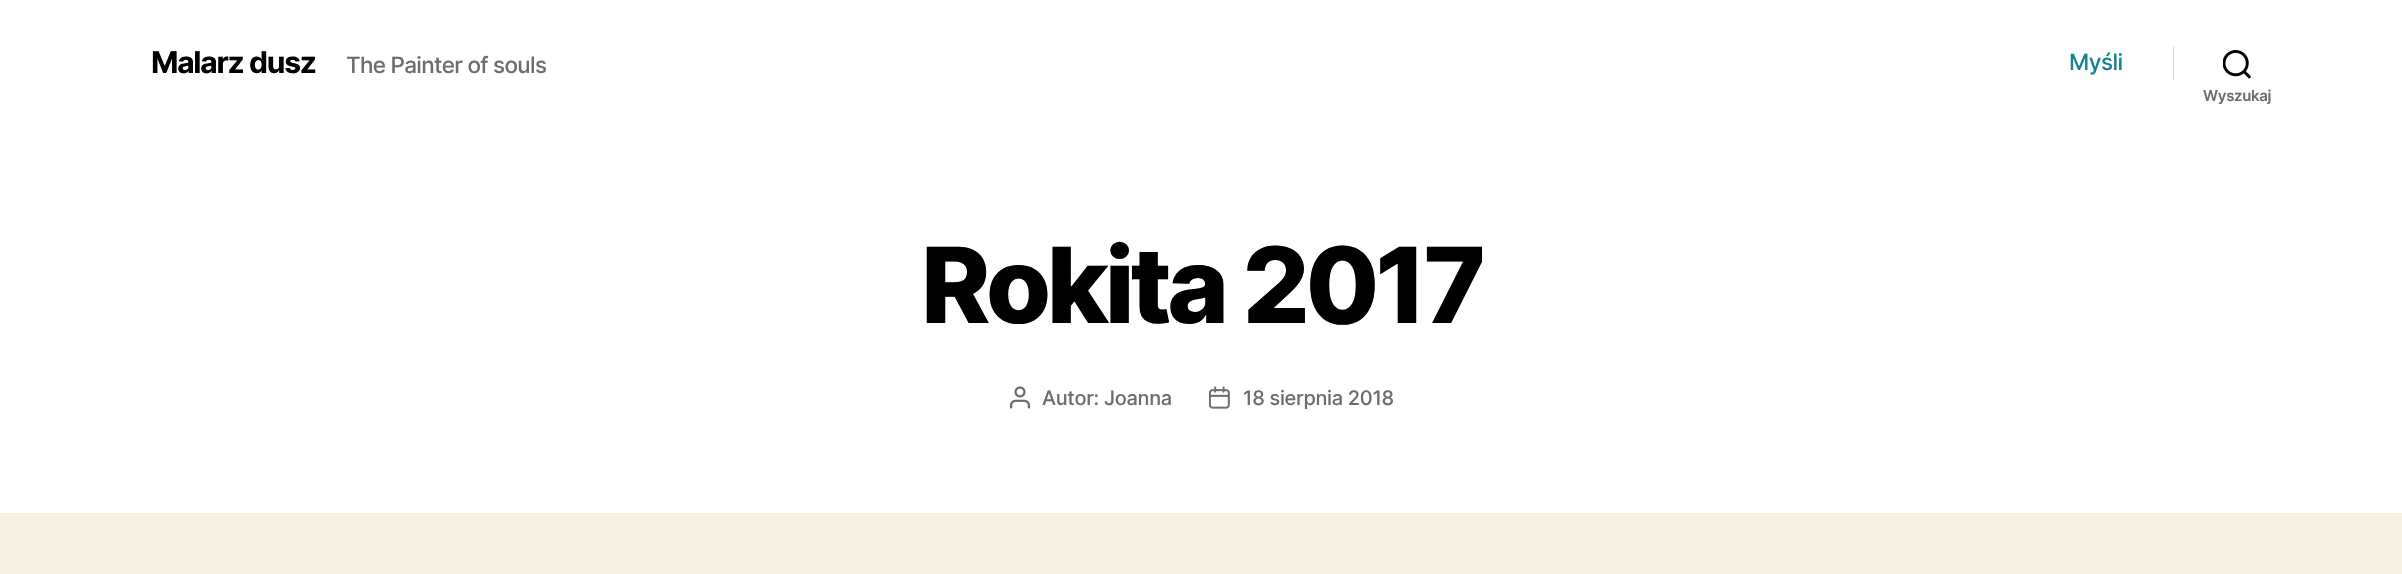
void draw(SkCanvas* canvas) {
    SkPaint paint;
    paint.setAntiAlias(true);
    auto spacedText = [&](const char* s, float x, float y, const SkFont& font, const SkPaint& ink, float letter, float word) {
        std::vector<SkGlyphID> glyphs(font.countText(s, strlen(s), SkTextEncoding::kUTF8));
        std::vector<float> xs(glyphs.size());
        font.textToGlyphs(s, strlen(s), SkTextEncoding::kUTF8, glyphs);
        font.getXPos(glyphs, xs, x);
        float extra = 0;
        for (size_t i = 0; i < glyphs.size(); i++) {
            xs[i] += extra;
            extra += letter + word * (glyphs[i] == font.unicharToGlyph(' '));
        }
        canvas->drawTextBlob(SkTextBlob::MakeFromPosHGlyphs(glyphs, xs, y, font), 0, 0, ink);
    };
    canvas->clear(0xFFF5EFE0);
    paint.setColor(0xFFFFFFFF);
    canvas->drawRect(SkRect::MakeXYWH(0, 0, 2402, 513), paint);
    SkFont font1(fontMgr->matchFamilyStyle("Inter", SkFontStyle::Bold()), 30);
    font1.setSubpixel(true);
    paint.setColor(0xFF000000);
    spacedText("Malarz dusz", 151, 73, font1, paint, -1.25f, 0);
    SkFont font2(fontMgr->matchFamilyStyle("Inter", SkFontStyle(500, SkFontStyle::kNormal_Width, SkFontStyle::kUpright_Slant)), 22.5f);
    font2.setSubpixel(true);
    paint.setColor(0xFF6D6D6D);
    spacedText("The Painter of souls", 346, 73, font2, paint, -0.7f, 0);
    paint.setColor(0xFF16838D);
    spacedText("Myśli", 2069, 70, font2, paint, -0.5f, 0);
    paint.setColor(0xFFDBDBDB);
    canvas->drawRect(SkRect::MakeXYWH(2173, 46, 1, 34), paint);
    canvas->drawImageRect(SkImages::DeferredFromEncodedData(SkData::MakeFromFileName("img1.png")), SkRect::MakeXYWH(2223, 50, 28, 29), SkSamplingOptions());
    SkFont font3(fontMgr->matchFamilyStyle("Inter", SkFontStyle(600, SkFontStyle::kNormal_Width, SkFontStyle::kUpright_Slant)), 15);
    font3.setSubpixel(true);
    paint.setColor(0xFF6D6D6D);
    spacedText("Wyszukaj", 2203, 101, font3, paint, -0.3f, 0);
    SkFont font4(fontMgr->matchFamilyStyle("Inter", SkFontStyle(800, SkFontStyle::kNormal_Width, SkFontStyle::kUpright_Slant)), 105);
    font4.setSubpixel(true);
    paint.setColor(0xFF000000);
    spacedText("Rokita 2017", 921, 323, font4, paint, -4.4f, 0);
    canvas->drawImageRect(SkImages::DeferredFromEncodedData(SkData::MakeFromFileName("img2.png")), SkRect::MakeXYWH(1010, 386, 20, 23), SkSamplingOptions());
    SkFont font5(fontMgr->matchFamilyStyle("Inter", SkFontStyle(500, SkFontStyle::kNormal_Width, SkFontStyle::kUpright_Slant)), 20);
    font5.setSubpixel(true);
    paint.setColor(0xFF6D6D6D);
    spacedText("Autor: Joanna", 1042, 405, font5, paint, -0.3f, 0);
    canvas->drawImageRect(SkImages::DeferredFromEncodedData(SkData::MakeFromFileName("img3.png")), SkRect::MakeXYWH(1209, 386, 21, 23), SkSamplingOptions());
    spacedText("18 sierpnia 2018", 1243, 405, font5, paint, -0.3f, 0);
}
